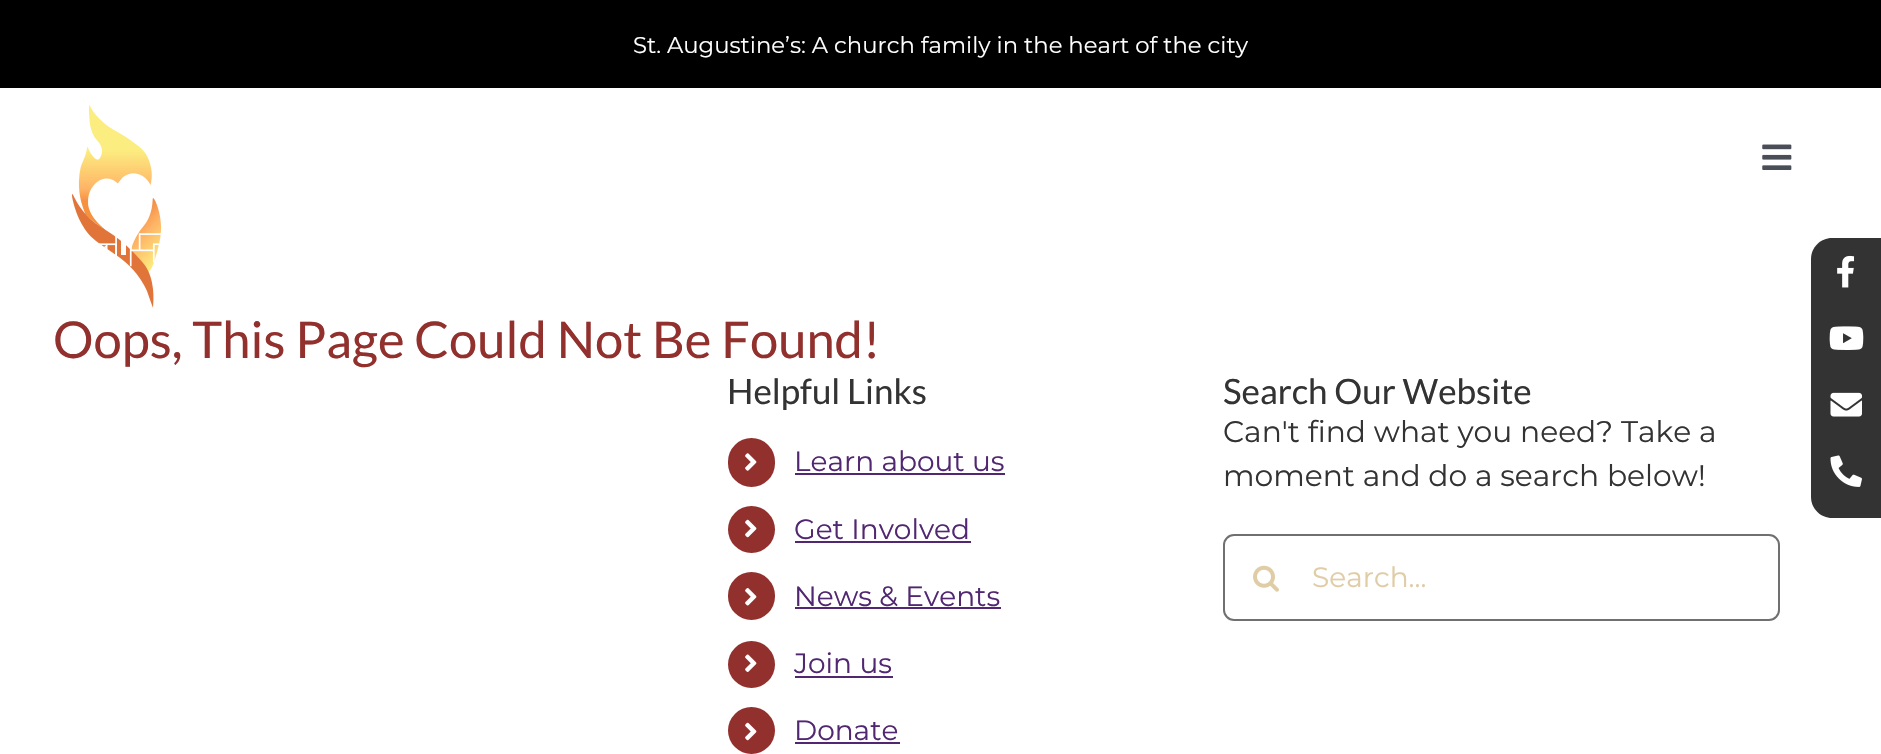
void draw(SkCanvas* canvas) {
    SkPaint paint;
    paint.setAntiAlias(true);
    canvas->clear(0xFFFFFFFF);
    paint.setColor(0xFF000000);
    canvas->drawRect(SkRect::MakeXYWH(0, 0, 1881, 88), paint);
    SkFont font1(fontMgr->matchFamilyStyle("Montserrat", SkFontStyle::Normal()), 22.75f);
    font1.setSubpixel(true);
    paint.setColor(0xFFFFFFFF);
    canvas->drawString("St. Augustine’s: A church family in the heart of the city", 633, 53, font1, paint);
    canvas->drawImageRect(SkImages::DeferredFromEncodedData(SkData::MakeFromFileName("img1.png")), SkRect::MakeXYWH(72, 105, 89, 203), SkSamplingOptions());
    canvas->drawImageRect(SkImages::DeferredFromEncodedData(SkData::MakeFromFileName("img2.png")), SkRect::MakeXYWH(1762, 144, 30, 26), SkSamplingOptions());
    SkFont font2(fontMgr->matchFamilyStyle("Lato", SkFontStyle::Normal()), 50.75f);
    font2.setSubpixel(true);
    paint.setColor(0xFF91302C);
    canvas->drawString("Oops, This Page Could Not Be Found!", 53, 358, font2, paint);
    SkFont font3(fontMgr->matchFamilyStyle("Lato", SkFontStyle::Normal()), 35);
    font3.setSubpixel(true);
    paint.setColor(0xFF343334);
    canvas->drawString("Helpful Links", 727, 404, font3, paint);
    paint.setColor(0xFF91302C);
    canvas->drawRoundRect(SkRect::MakeXYWH(728, 438, 47, 49), 23.5f, 23.5f, paint);
    canvas->drawImageRect(SkImages::DeferredFromEncodedData(SkData::MakeFromFileName("img3.png")), SkRect::MakeXYWH(745, 453, 12, 18), SkSamplingOptions());
    SkFont font4(fontMgr->matchFamilyStyle("Montserrat", SkFontStyle::Normal()), 28);
    font4.setSubpixel(true);
    paint.setColor(0xFF522771);
    canvas->drawString("Learn about us", 794, 471, font4, paint);
    canvas->drawRect(SkRect::MakeXYWH(795, 473, 210, 2), paint);
    paint.setColor(0xFF91302C);
    canvas->drawCircle(751.5f, 529.5f, 23.5f, paint);
    canvas->drawImageRect(SkImages::DeferredFromEncodedData(SkData::MakeFromFileName("img4.png")), SkRect::MakeXYWH(745, 519, 12, 19), SkSamplingOptions());
    paint.setColor(0xFF522771);
    canvas->drawString("Get Involved", 794, 539, font4, paint);
    canvas->drawRect(SkRect::MakeXYWH(795, 541, 176, 2), paint);
    paint.setColor(0xFF91302C);
    canvas->drawRoundRect(SkRect::MakeXYWH(728, 572, 47, 48), 23.5f, 23.5f, paint);
    canvas->drawImageRect(SkImages::DeferredFromEncodedData(SkData::MakeFromFileName("img5.png")), SkRect::MakeXYWH(745, 588, 12, 18), SkSamplingOptions());
    paint.setColor(0xFF522771);
    canvas->drawString("News & Events", 794, 606, font4, paint);
    canvas->drawRect(SkRect::MakeXYWH(795, 607, 206, 2), paint);
    paint.setColor(0xFF91302C);
    canvas->drawCircle(751.5f, 664.5f, 23.5f, paint);
    canvas->drawImageRect(SkImages::DeferredFromEncodedData(SkData::MakeFromFileName("img6.png")), SkRect::MakeXYWH(745, 654, 12, 18), SkSamplingOptions());
    paint.setColor(0xFF522771);
    canvas->drawString("Join us", 794, 673, font4, paint);
    canvas->drawRect(SkRect::MakeXYWH(795, 676, 98, 2), paint);
    paint.setColor(0xFF91302C);
    canvas->drawCircle(751.5f, 730.5f, 23.5f, paint);
    canvas->drawImageRect(SkImages::DeferredFromEncodedData(SkData::MakeFromFileName("img4.png")), SkRect::MakeXYWH(745, 722, 12, 19), SkSamplingOptions());
    paint.setColor(0xFF522771);
    canvas->drawString("Donate", 794, 740, font4, paint);
    canvas->drawRect(SkRect::MakeXYWH(795, 742, 105, 2), paint);
    paint.setColor(0xFF343334);
    canvas->drawString("Search Our Website", 1223, 404, font3, paint);
    SkFont font5(fontMgr->matchFamilyStyle("Montserrat", SkFontStyle::Normal()), 29.75f);
    font5.setSubpixel(true);
    canvas->drawString("Can't find what you need? Take a", 1223, 442, font5, paint);
    canvas->drawString("moment and do a search below!", 1223, 486, font5, paint);
    paint.setStyle(SkPaint::kStroke_Style);
    paint.setStrokeWidth(2);
    paint.setColor(0xFF707070);
    canvas->drawRoundRect(SkRect::MakeXYWH(1224, 535, 555, 85), 10, 10, paint);
    canvas->drawImageRect(SkImages::DeferredFromEncodedData(SkData::MakeFromFileName("img7.png")), SkRect::MakeXYWH(1253, 565, 26, 27), SkSamplingOptions());
    paint.setStyle(SkPaint::kFill_Style);
    paint.setColor(0xFFE0CCA5);
    canvas->drawString("Search...", 1312, 587, font4, paint);
    paint.setColor(0xFF343334);
    canvas->drawPath(SkPathBuilder().moveTo(1832, 238).lineTo(1881, 238).lineTo(1881, 518).lineTo(1832, 518).cubicTo(1820.5f, 518, 1811, 508.5f, 1811, 497).lineTo(1811, 259).cubicTo(1811, 247.5f, 1820.5f, 238, 1832, 238).close().detach(), paint);
    canvas->drawImageRect(SkImages::DeferredFromEncodedData(SkData::MakeFromFileName("img8.png")), SkRect::MakeXYWH(1837, 255, 18, 33), SkSamplingOptions());
    canvas->drawImageRect(SkImages::DeferredFromEncodedData(SkData::MakeFromFileName("img9.png")), SkRect::MakeXYWH(1829, 326, 35, 24), SkSamplingOptions());
    canvas->drawImageRect(SkImages::DeferredFromEncodedData(SkData::MakeFromFileName("img10.png")), SkRect::MakeXYWH(1830, 392, 32, 25), SkSamplingOptions());
    canvas->drawImageRect(SkImages::DeferredFromEncodedData(SkData::MakeFromFileName("img11.png")), SkRect::MakeXYWH(1830, 455, 32, 32), SkSamplingOptions());
}
